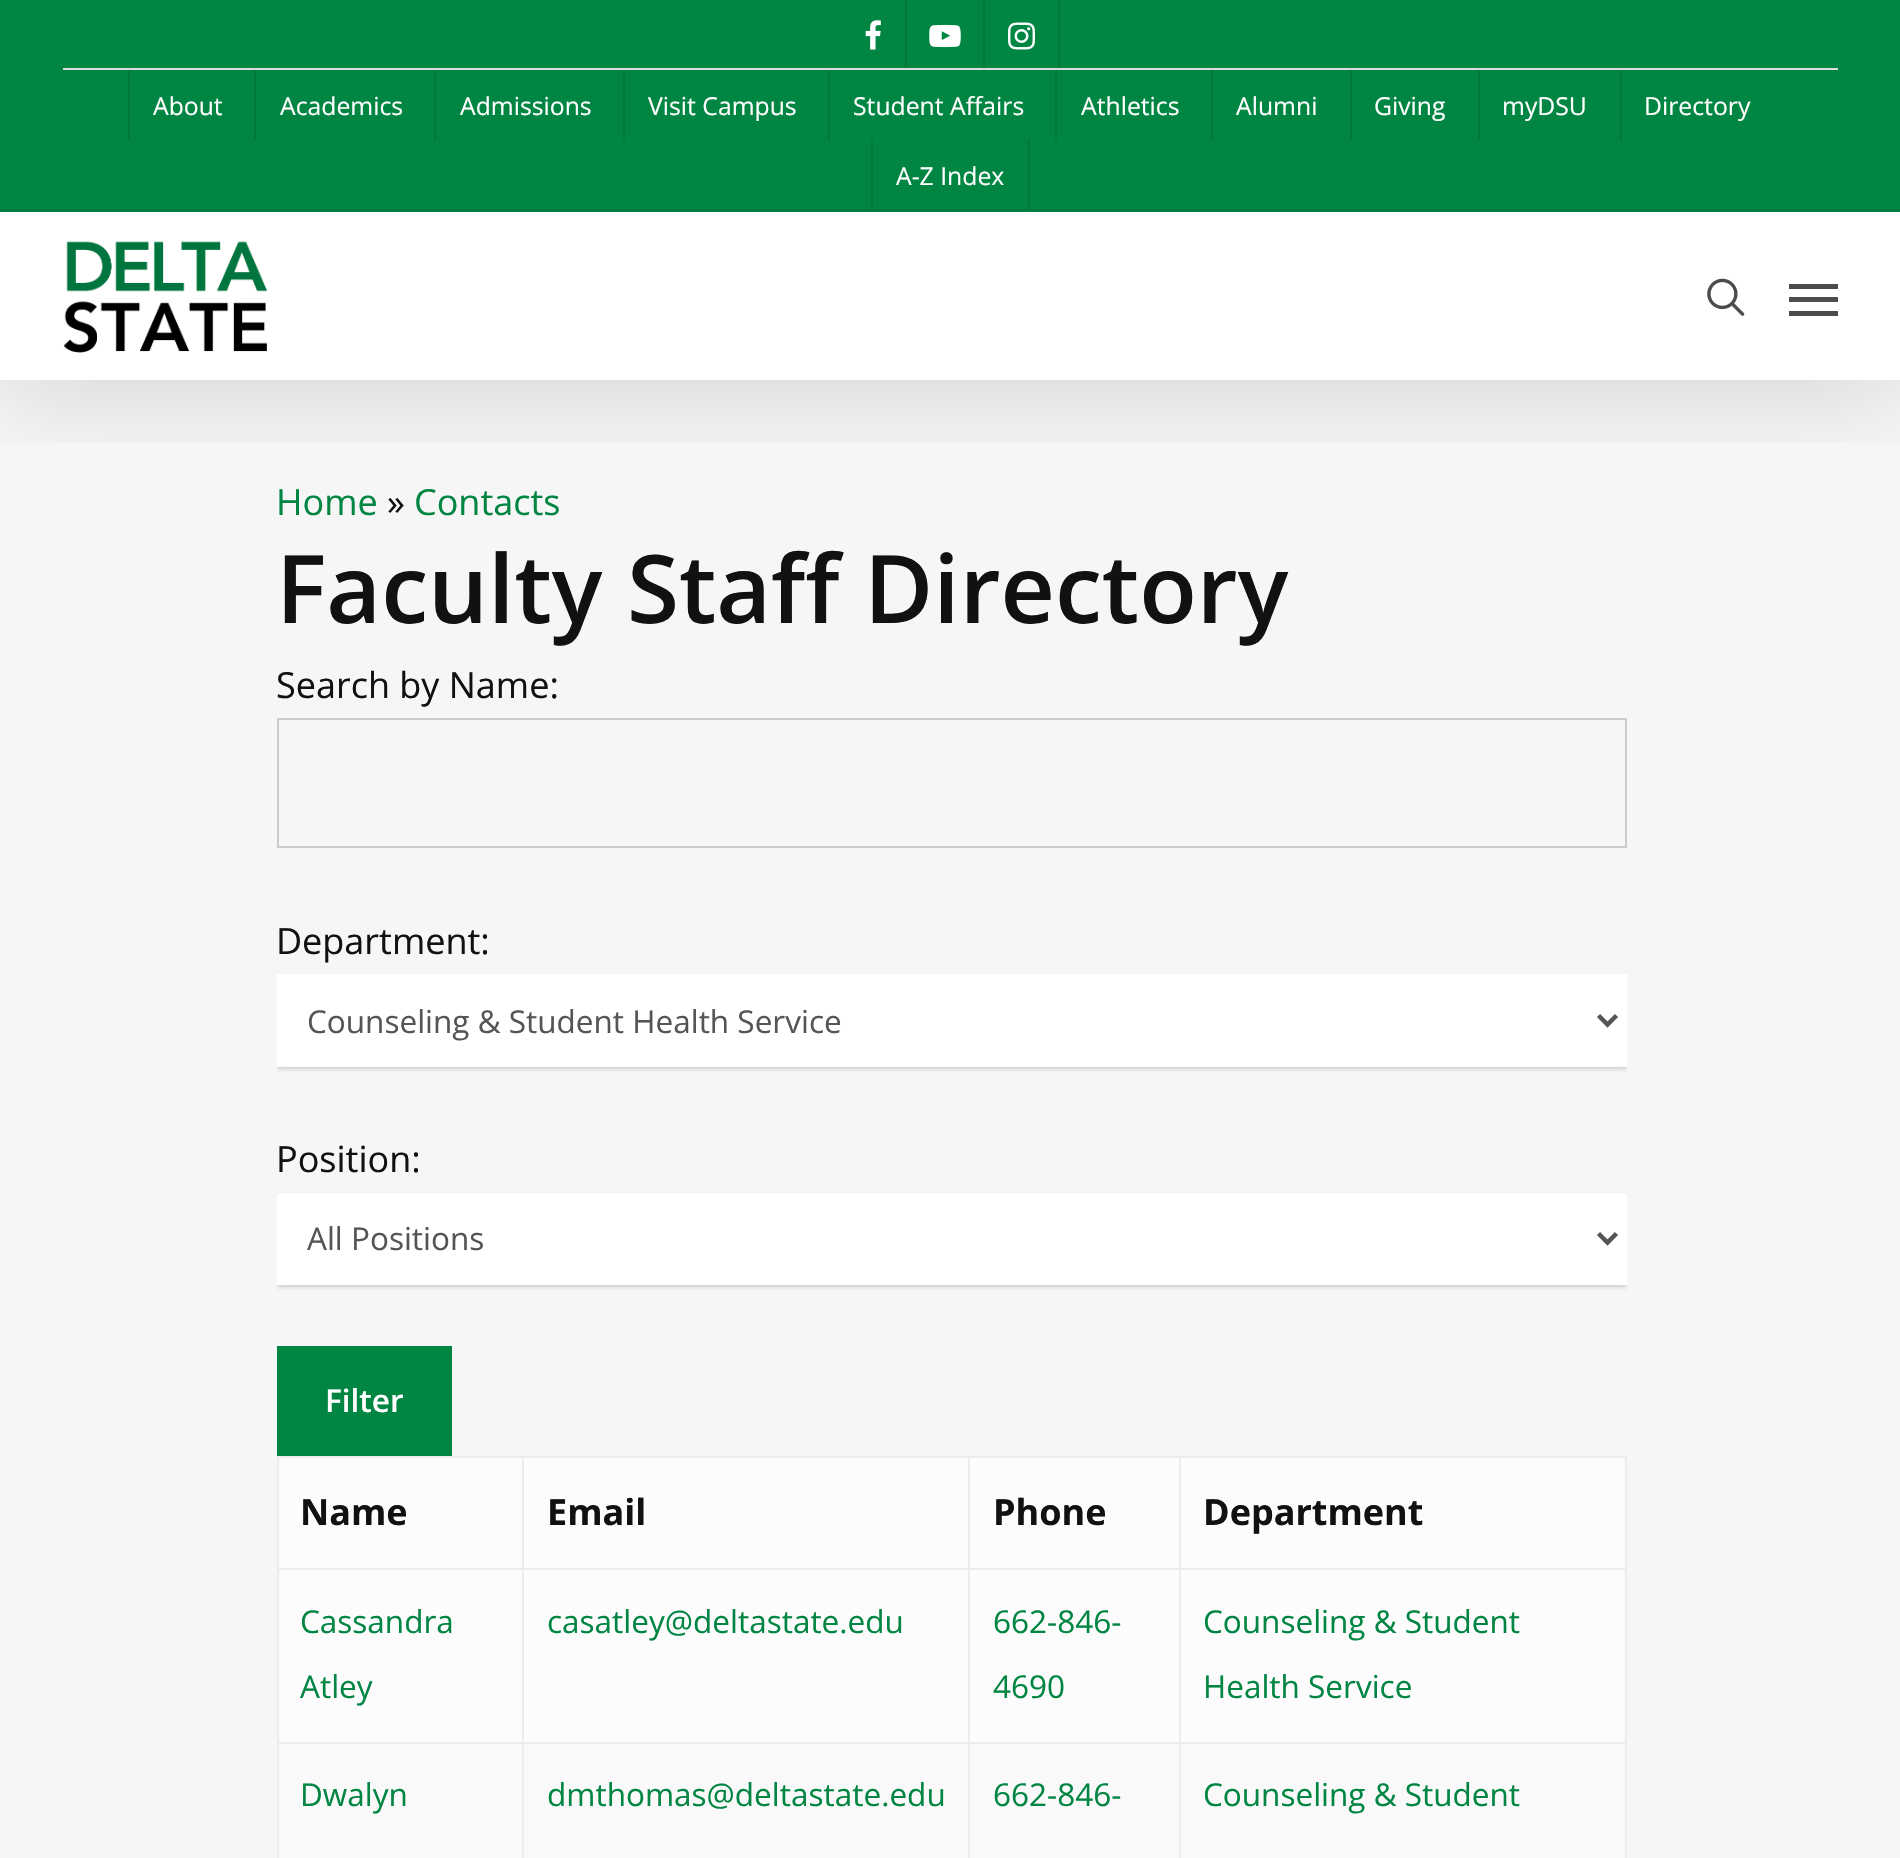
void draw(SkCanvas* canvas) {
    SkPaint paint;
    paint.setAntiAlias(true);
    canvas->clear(0xFFFFFFFF);
    paint.setColor(0xFFF6F6F6);
    canvas->drawRect(SkRect::MakeXYWH(0, 380, 1900, 1478), paint);
    canvas->save();
    canvas->clipRect(SkRect::MakeXYWH(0, 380, 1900, 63));
    paint.setColor(0x26000000);
    paint.setMaskFilter(SkMaskFilter::MakeBlur(kNormal_SkBlurStyle, 50.5f));
    canvas->drawRect(SkRect::MakeXYWH(0, 7, 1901, 380), paint);
    paint.setMaskFilter(nullptr);
    canvas->restore();
    paint.setColor(0xFF008542);
    canvas->drawRect(SkRect::MakeXYWH(0, 0, 1900, 212), paint);
    paint.setColor(0xFF00783B);
    canvas->drawRect(SkRect::MakeXYWH(0, 209, 1900, 2), paint);
    canvas->drawImageRect(SkImages::DeferredFromEncodedData(SkData::MakeFromFileName("img1.png")), SkRect::MakeXYWH(865, 20, 16, 30), SkSamplingOptions());
    canvas->drawRect(SkRect::MakeXYWH(905, 0, 2, 68), paint);
    canvas->drawImageRect(SkImages::DeferredFromEncodedData(SkData::MakeFromFileName("img2.png")), SkRect::MakeXYWH(929, 24, 32, 24), SkSamplingOptions());
    canvas->drawRect(SkRect::MakeXYWH(1058, 0, 2, 68), paint);
    canvas->drawRect(SkRect::MakeXYWH(983, 0, 2, 68), paint);
    canvas->drawImageRect(SkImages::DeferredFromEncodedData(SkData::MakeFromFileName("img3.png")), SkRect::MakeXYWH(1008, 22, 27, 28), SkSamplingOptions());
    paint.setColor(0xFFDDDDDD);
    canvas->drawRect(SkRect::MakeXYWH(63, 68, 1775, 2), paint);
    paint.setColor(0xFF00783B);
    canvas->drawRect(SkRect::MakeXYWH(128, 70, 2, 70), paint);
    SkFont font1(fontMgr->matchFamilyStyle("Open Sans", SkFontStyle::Normal()), 24.75f);
    font1.setSubpixel(true);
    paint.setColor(0xFFFFFFFF);
    canvas->drawString("About", 153, 115, font1, paint);
    paint.setColor(0xFF00783B);
    canvas->drawRect(SkRect::MakeXYWH(254, 70, 2, 70), paint);
    paint.setColor(0xFFFFFFFF);
    canvas->drawString("Academics", 280, 115, font1, paint);
    paint.setColor(0xFF00783B);
    canvas->drawRect(SkRect::MakeXYWH(434, 70, 2, 70), paint);
    paint.setColor(0xFFFFFFFF);
    canvas->drawString("Admissions", 460, 115, font1, paint);
    paint.setColor(0xFF00783B);
    canvas->drawRect(SkRect::MakeXYWH(623, 70, 2, 70), paint);
    paint.setColor(0xFFFFFFFF);
    canvas->drawString("Visit Campus", 648, 115, font1, paint);
    paint.setColor(0xFF00783B);
    canvas->drawRect(SkRect::MakeXYWH(828, 70, 2, 70), paint);
    paint.setColor(0xFFFFFFFF);
    canvas->drawString("Student Affairs", 853, 115, font1, paint);
    paint.setColor(0xFF00783B);
    canvas->drawRect(SkRect::MakeXYWH(1055, 70, 2, 70), paint);
    paint.setColor(0xFFFFFFFF);
    canvas->drawString("Athletics", 1081, 115, font1, paint);
    paint.setColor(0xFF00783B);
    canvas->drawRect(SkRect::MakeXYWH(1211, 70, 2, 70), paint);
    paint.setColor(0xFFFFFFFF);
    canvas->drawString("Alumni", 1236, 115, font1, paint);
    paint.setColor(0xFF00783B);
    canvas->drawRect(SkRect::MakeXYWH(1350, 70, 2, 70), paint);
    paint.setColor(0xFFFFFFFF);
    canvas->drawString("Giving", 1374, 115, font1, paint);
    paint.setColor(0xFF00783B);
    canvas->drawRect(SkRect::MakeXYWH(1478, 70, 2, 70), paint);
    paint.setColor(0xFFFFFFFF);
    canvas->drawString("myDSU", 1502, 115, font1, paint);
    paint.setColor(0xFF00783B);
    canvas->drawRect(SkRect::MakeXYWH(1620, 70, 2, 70), paint);
    paint.setColor(0xFFFFFFFF);
    canvas->drawString("Directory", 1644, 115, font1, paint);
    paint.setColor(0xFF00783B);
    canvas->drawRect(SkRect::MakeXYWH(1028, 140, 2, 69), paint);
    canvas->drawRect(SkRect::MakeXYWH(871, 140, 2, 69), paint);
    paint.setColor(0xFFFFFFFF);
    canvas->drawString("A-Z Index", 896, 185, font1, paint);
    canvas->drawImageRect(SkImages::DeferredFromEncodedData(SkData::MakeFromFileName("img4.png")), SkRect::MakeXYWH(63, 241, 205, 112), SkSamplingOptions());
    canvas->drawImageRect(SkImages::DeferredFromEncodedData(SkData::MakeFromFileName("img5.png")), SkRect::MakeXYWH(1707, 278, 38, 38), SkSamplingOptions());
    paint.setColor(0xFF4C4C4E);
    canvas->drawRect(SkRect::MakeXYWH(1789, 284, 49, 5), paint);
    canvas->drawRect(SkRect::MakeXYWH(1789, 311, 49, 5), paint);
    canvas->drawRect(SkRect::MakeXYWH(1789, 297, 49, 5), paint);
    SkFont font2(fontMgr->matchFamilyStyle("Open Sans", SkFontStyle::Normal()), 36);
    font2.setSubpixel(true);
    paint.setColor(0xFF008542);
    canvas->drawString("Home", 276, 515, font2, paint);
    paint.setColor(0xFF111111);
    canvas->drawString("»", 387, 515, font2, paint);
    paint.setColor(0xFF008542);
    canvas->drawString("Contacts", 414, 515, font2, paint);
    SkFont font3(fontMgr->matchFamilyStyle("Open Sans", SkFontStyle(600, SkFontStyle::kNormal_Width, SkFontStyle::kUpright_Slant)), 94.5f);
    font3.setSubpixel(true);
    paint.setColor(0xFF111111);
    canvas->drawString("Faculty Staff Directory", 276, 623, font3, paint);
    canvas->drawString("Search by Name:", 276, 698, font2, paint);
    paint.setStyle(SkPaint::kStroke_Style);
    paint.setStrokeWidth(2);
    paint.setColor(0xFFCCCCCC);
    canvas->drawRect(SkRect::MakeXYWH(278, 719, 1348, 128), paint);
    paint.setStyle(SkPaint::kFill_Style);
    paint.setColor(0xFF111111);
    canvas->drawString("Department:", 276, 954, font2, paint);
    canvas->save();
    canvas->clipRect(SkRect::MakeXYWH(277, 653, 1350, 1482));
    paint.setColor(0x29000000);
    paint.setMaskFilter(SkMaskFilter::MakeBlur(kNormal_SkBlurStyle, 2));
    canvas->drawRect(SkRect::MakeXYWH(277, 977, 1350, 92), paint);
    paint.setMaskFilter(nullptr);
    canvas->restore();
    paint.setColor(0xFFFFFFFF);
    canvas->drawRect(SkRect::MakeXYWH(277, 974, 1350, 93), paint);
    paint.setStyle(SkPaint::kStroke_Style);
    paint.setStrokeWidth(4.5f);
    paint.setColor(0xFF555555);
    canvas->drawPath(SkPathBuilder().moveTo(1598.5f, 1015.5f).lineTo(1607.5f, 1024.5f).lineTo(1616.5f, 1015.5f).detach(), paint);
    SkFont font4(fontMgr->matchFamilyStyle("Open Sans", SkFontStyle::Normal()), 31.5f);
    font4.setSubpixel(true);
    paint.setStyle(SkPaint::kFill_Style);
    canvas->drawString("Counseling & Student Health Service", 307, 1033, font4, paint);
    paint.setColor(0xFF111111);
    canvas->drawString("Position:", 276, 1172, font2, paint);
    canvas->save();
    canvas->clipRect(SkRect::MakeXYWH(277, 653, 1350, 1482));
    paint.setColor(0x29000000);
    paint.setMaskFilter(SkMaskFilter::MakeBlur(kNormal_SkBlurStyle, 2));
    canvas->drawRect(SkRect::MakeXYWH(277, 1195, 1350, 92), paint);
    paint.setMaskFilter(nullptr);
    canvas->restore();
    paint.setColor(0xFFFFFFFF);
    canvas->drawRect(SkRect::MakeXYWH(277, 1193, 1350, 92), paint);
    paint.setStyle(SkPaint::kStroke_Style);
    paint.setColor(0xFF555555);
    canvas->drawPath(SkPathBuilder().moveTo(1598.5f, 1233.5f).lineTo(1607.5f, 1242.5f).lineTo(1616.5f, 1233.5f).detach(), paint);
    paint.setStyle(SkPaint::kFill_Style);
    canvas->drawString("All Positions", 307, 1250, font4, paint);
    paint.setColor(0xFF008542);
    canvas->drawRect(SkRect::MakeXYWH(277, 1346, 175, 110), paint);
    SkFont font5(fontMgr->matchFamilyStyle("Open Sans", SkFontStyle(600, SkFontStyle::kNormal_Width, SkFontStyle::kUpright_Slant)), 31.5f);
    font5.setSubpixel(true);
    paint.setColor(0xFFFFFFFF);
    canvas->drawString("Filter", 325, 1412, font5, paint);
    paint.setColor(0xFFECECEC);
    canvas->drawRect(SkRect::MakeXYWH(277, 1456, 1350, 2), paint);
    paint.setColor(0xFFFCFCFC);
    canvas->drawRect(SkRect::MakeXYWH(279, 1458, 1346, 110), paint);
    canvas->drawRect(SkRect::MakeXYWH(279, 1570, 1346, 172), paint);
    paint.setColor(0xFFF9F9F9);
    canvas->drawRect(SkRect::MakeXYWH(279, 1744, 1346, 114), paint);
    paint.setColor(0xFFECECEC);
    canvas->drawRect(SkRect::MakeXYWH(1179, 1742, 2, 116), paint);
    canvas->drawRect(SkRect::MakeXYWH(1625, 1456, 2, 402), paint);
    canvas->drawRect(SkRect::MakeXYWH(1179, 1742, 448, 2), paint);
    canvas->drawRect(SkRect::MakeXYWH(1179, 1568, 2, 176), paint);
    canvas->drawRect(SkRect::MakeXYWH(1179, 1568, 448, 2), paint);
    canvas->drawRect(SkRect::MakeXYWH(1179, 1456, 2, 115), paint);
    canvas->drawRect(SkRect::MakeXYWH(968, 1742, 2, 116), paint);
    canvas->drawRect(SkRect::MakeXYWH(968, 1742, 213, 2), paint);
    canvas->drawRect(SkRect::MakeXYWH(968, 1568, 2, 176), paint);
    canvas->drawRect(SkRect::MakeXYWH(968, 1568, 213, 2), paint);
    canvas->drawRect(SkRect::MakeXYWH(968, 1456, 2, 115), paint);
    canvas->drawRect(SkRect::MakeXYWH(522, 1742, 2, 116), paint);
    canvas->drawRect(SkRect::MakeXYWH(522, 1742, 448, 2), paint);
    canvas->drawRect(SkRect::MakeXYWH(522, 1568, 2, 176), paint);
    canvas->drawRect(SkRect::MakeXYWH(522, 1568, 448, 2), paint);
    canvas->drawRect(SkRect::MakeXYWH(522, 1456, 2, 115), paint);
    canvas->drawRect(SkRect::MakeXYWH(277, 1742, 2, 116), paint);
    canvas->drawRect(SkRect::MakeXYWH(277, 1742, 247, 2), paint);
    canvas->drawRect(SkRect::MakeXYWH(277, 1568, 2, 176), paint);
    canvas->drawRect(SkRect::MakeXYWH(277, 1568, 247, 2), paint);
    canvas->drawRect(SkRect::MakeXYWH(277, 1456, 2, 115), paint);
    SkFont font6(fontMgr->matchFamilyStyle("Open Sans", SkFontStyle::Bold()), 36);
    font6.setSubpixel(true);
    paint.setColor(0xFF111111);
    canvas->drawString("Name", 300, 1525, font6, paint);
    canvas->drawString("Email", 547, 1525, font6, paint);
    canvas->drawString("Phone", 993, 1525, font6, paint);
    canvas->drawString("Department", 1203, 1525, font6, paint);
    paint.setColor(0xFF008542);
    canvas->drawString("Cassandra", 300, 1633, font4, paint);
    canvas->drawString("Atley", 300, 1698, font4, paint);
    canvas->drawString("casatley@deltastate.edu", 547, 1633, font4, paint);
    canvas->drawString("662-846-", 993, 1633, font4, paint);
    canvas->drawString("4690", 993, 1698, font4, paint);
    canvas->drawString("Counseling & Student", 1203, 1633, font4, paint);
    canvas->drawString("Health Service", 1203, 1698, font4, paint);
    canvas->drawString("Dwalyn", 300, 1806, font4, paint);
    canvas->drawString("dmthomas@deltastate.edu", 547, 1806, font4, paint);
    canvas->drawString("662-846-", 993, 1806, font4, paint);
    canvas->drawString("Counseling & Student", 1203, 1806, font4, paint);
}
